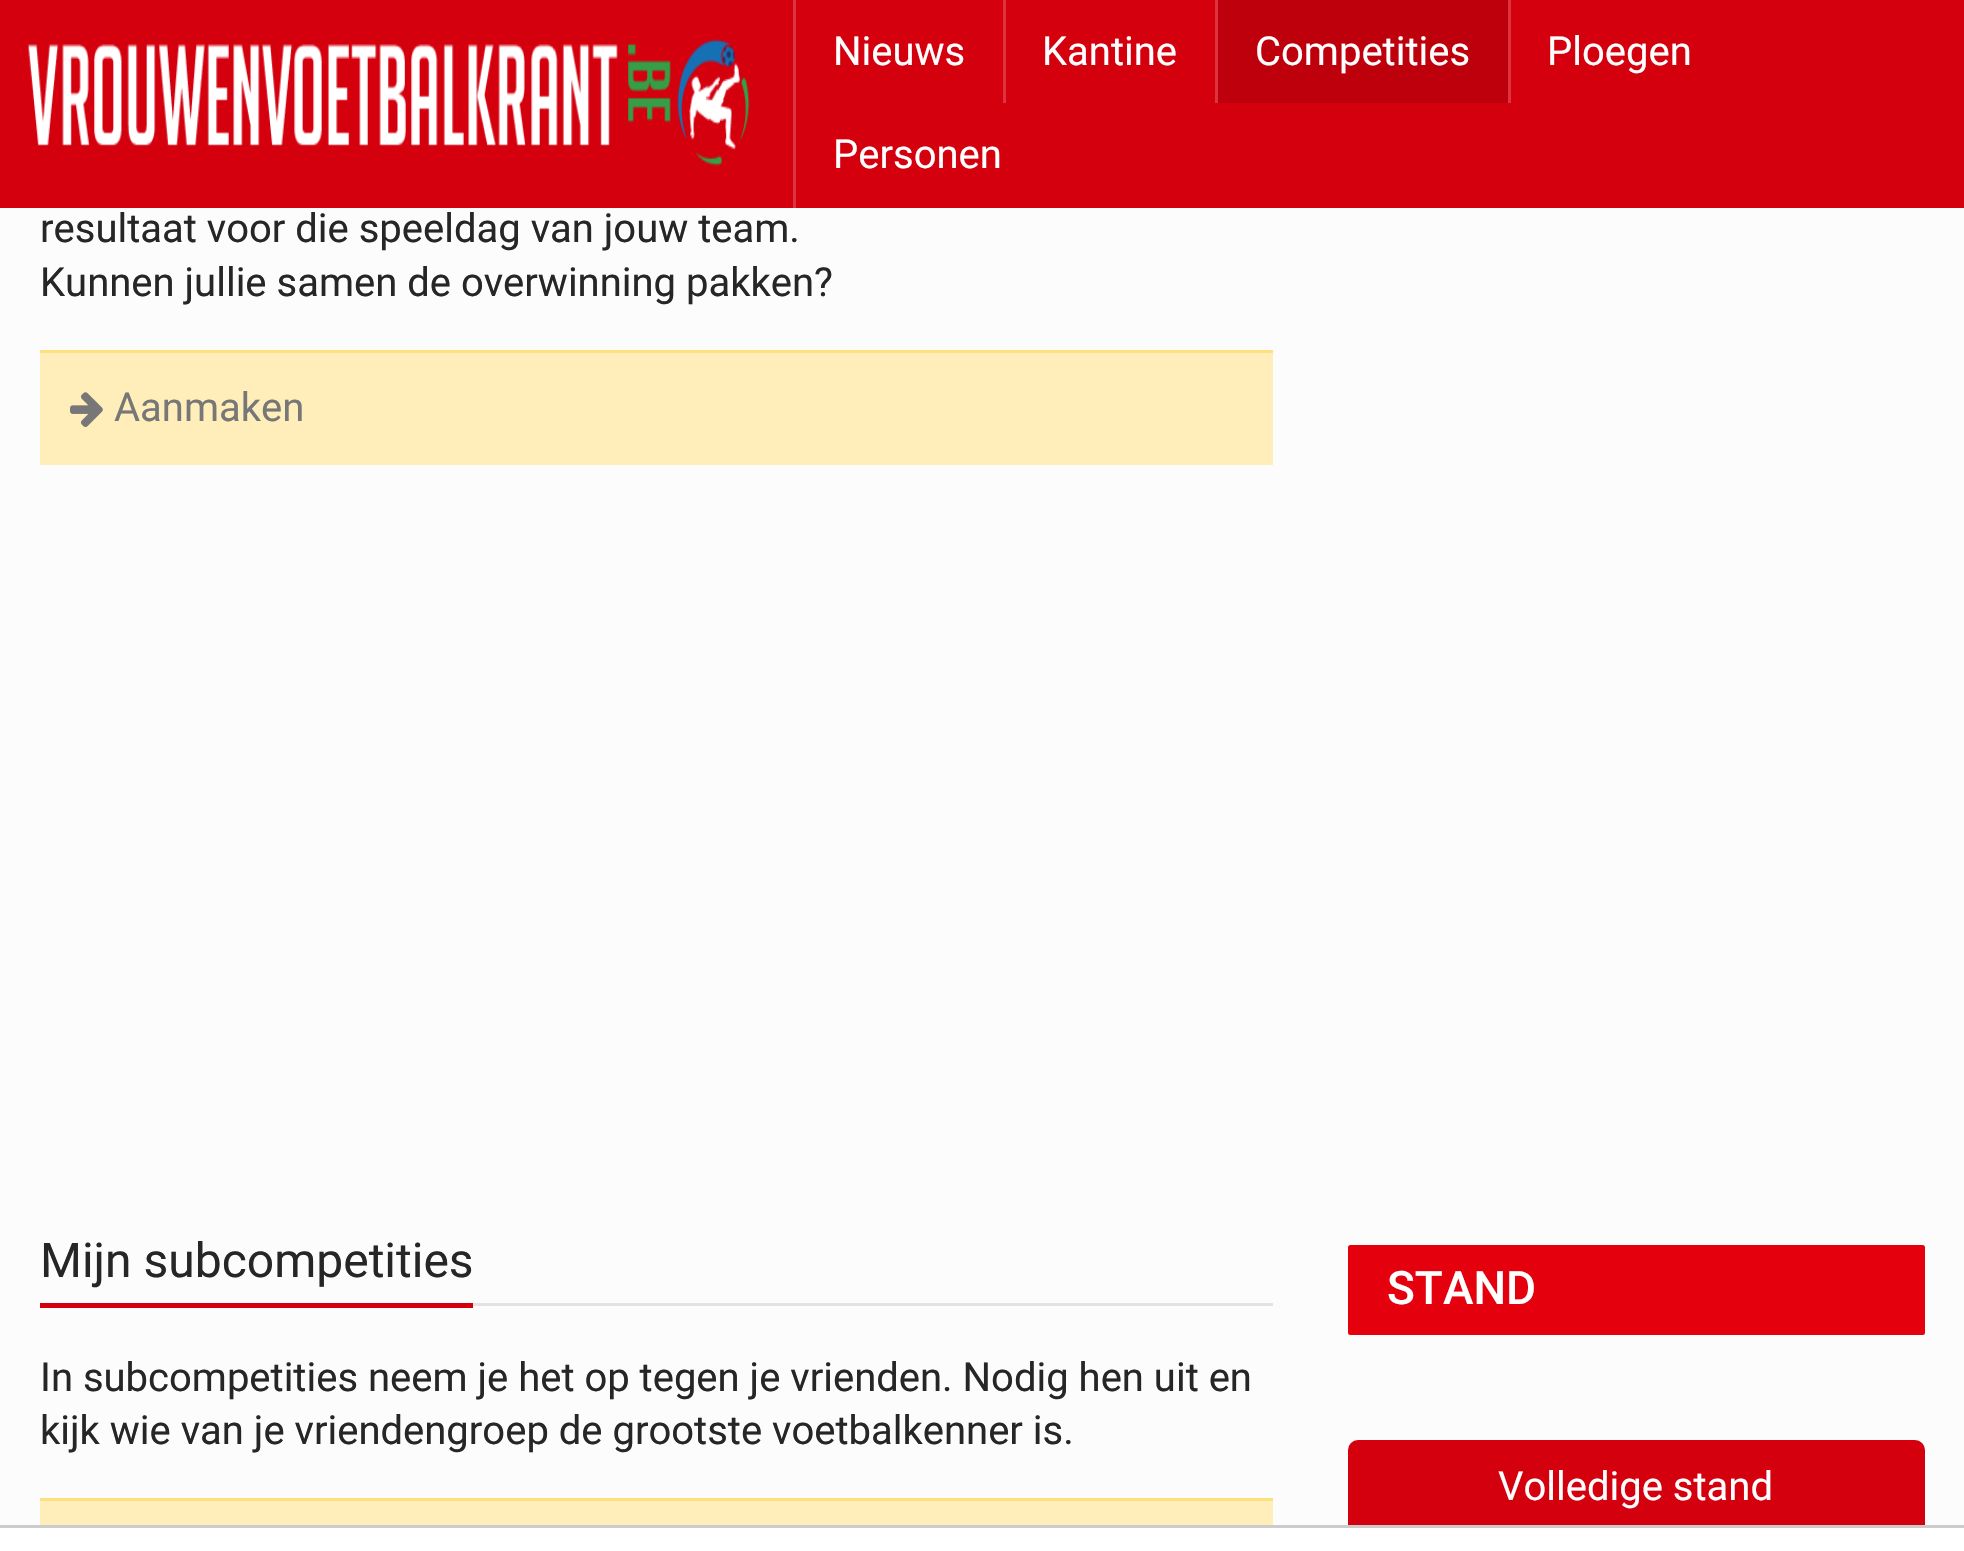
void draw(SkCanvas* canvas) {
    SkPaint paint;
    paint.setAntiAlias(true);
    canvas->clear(0xFFFCFCFC);
    paint.setColor(0xFFD4000E);
    canvas->drawRect(SkRect::MakeXYWH(0, 0, 1964, 208), paint);
    canvas->drawImageRect(SkImages::DeferredFromEncodedData(SkData::MakeFromFileName("img1.png")), SkRect::MakeXYWH(27, 39, 723, 128), SkSamplingOptions());
    paint.setColor(0xFFDD333E);
    canvas->drawRect(SkRect::MakeXYWH(793, 0, 3, 208), paint);
    SkFont font1(fontMgr->matchFamilyStyle("Roboto", SkFontStyle::Normal()), 40);
    font1.setSubpixel(true);
    paint.setColor(0xFFFFFFFF);
    canvas->drawString("Nieuws", 833, 65, font1, paint);
    paint.setColor(0xFFDD333E);
    canvas->drawRect(SkRect::MakeXYWH(1003, 0, 3, 103), paint);
    paint.setColor(0xFFFFFFFF);
    canvas->drawString("Kantine", 1042, 65, font1, paint);
    paint.setColor(0xFFDD333E);
    canvas->drawRect(SkRect::MakeXYWH(1215, 0, 3, 103), paint);
    paint.setColor(0xFFBE000C);
    canvas->drawRect(SkRect::MakeXYWH(1218, 0, 290, 103), paint);
    paint.setColor(0xFFFFFFFF);
    canvas->drawString("Competities", 1255, 65, font1, paint);
    paint.setColor(0xFFDD333E);
    canvas->drawRect(SkRect::MakeXYWH(1508, 0, 3, 103), paint);
    paint.setColor(0xFFFFFFFF);
    canvas->drawString("Ploegen", 1547, 65, font1, paint);
    canvas->drawString("Personen", 833, 168, font1, paint);
    paint.setColor(0xFF262626);
    canvas->drawString("resultaat voor die speeldag van jouw team.", 40, 242, font1, paint);
    canvas->drawString("Kunnen jullie samen de overwinning pakken?", 40, 296, font1, paint);
    paint.setColor(0xFFFFEEBA);
    canvas->drawRect(SkRect::MakeXYWH(40, 353, 1233, 112), paint);
    paint.setColor(0xFFFFDF7E);
    canvas->drawRect(SkRect::MakeXYWH(40, 350, 1233, 3), paint);
    canvas->drawImageRect(SkImages::DeferredFromEncodedData(SkData::MakeFromFileName("img2.png")), SkRect::MakeXYWH(70, 392, 33, 35), SkSamplingOptions());
    paint.setColor(0xFF777777);
    canvas->drawString("Aanmaken", 114, 421, font1, paint);
    paint.setColor(0xFFE3E3E3);
    canvas->drawRect(SkRect::MakeXYWH(473, 1303, 800, 3), paint);
    paint.setColor(0xFFD4000E);
    canvas->drawRect(SkRect::MakeXYWH(40, 1303, 433, 5), paint);
    SkFont font2(fontMgr->matchFamilyStyle("Roboto", SkFontStyle::Normal()), 48);
    font2.setSubpixel(true);
    paint.setColor(0xFF262626);
    canvas->drawString("Mijn subcompetities", 40, 1277, font2, paint);
    canvas->drawString("In subcompetities neem je het op tegen je vrienden. Nodig hen uit en", 40, 1391, font1, paint);
    canvas->drawString("kijk wie van je vriendengroep de grootste voetbalkenner is.", 40, 1444, font1, paint);
    paint.setColor(0xFFFFEEBA);
    canvas->drawRect(SkRect::MakeXYWH(40, 1501, 1233, 24), paint);
    paint.setColor(0xFFFFDF7E);
    canvas->drawRect(SkRect::MakeXYWH(40, 1498, 1233, 3), paint);
    paint.setColor(0xFFE4000D);
    canvas->drawRoundRect(SkRect::MakeXYWH(1348, 1245, 577, 90), 2.5f, 2.5f, paint);
    SkFont font3(fontMgr->matchFamilyStyle("Roboto", SkFontStyle(500, SkFontStyle::kNormal_Width, SkFontStyle::kUpright_Slant)), 46);
    font3.setSubpixel(true);
    paint.setColor(0xFFFFFFFF);
    canvas->drawString("STAND", 1387, 1304, font3, paint);
    paint.setColor(0xFFD4000E);
    canvas->drawRoundRect(SkRect::MakeXYWH(1349.5f, 1441.5f, 574, 92), 8.5f, 8.5f, paint);
    paint.setStyle(SkPaint::kStroke_Style);
    paint.setStrokeWidth(3);
    canvas->drawRoundRect(SkRect::MakeXYWH(1349.5f, 1441.5f, 574, 92), 8.5f, 8.5f, paint);
    paint.setStyle(SkPaint::kFill_Style);
    paint.setColor(0xFFFFFFFF);
    canvas->drawString("Volledige stand", 1498, 1500, font1, paint);
    canvas->drawRect(SkRect::MakeXYWH(0, 1528, 1964, 23), paint);
    paint.setColor(0xFFCCCCCC);
    canvas->drawRect(SkRect::MakeXYWH(0, 1525, 1964, 3), paint);
}
